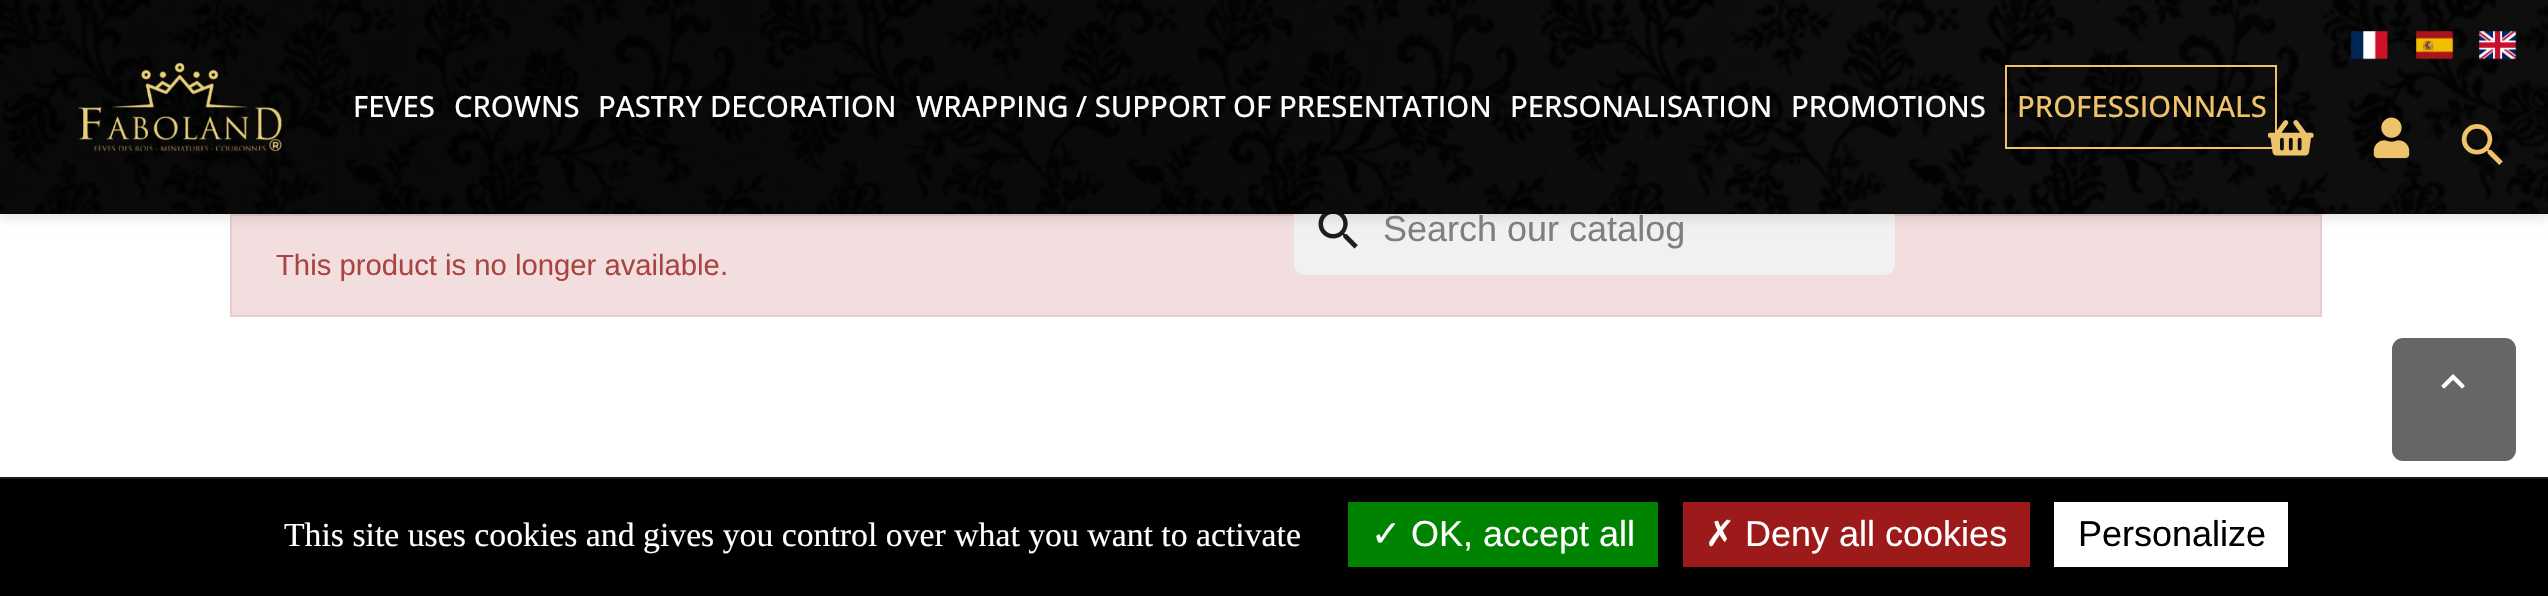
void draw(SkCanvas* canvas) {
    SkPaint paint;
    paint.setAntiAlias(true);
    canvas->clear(0xFFFFFFFF);
    paint.setColor(0xFFF2DEDE);
    canvas->drawRect(SkRect::MakeXYWH(231, 215, 2090, 101), paint);
    paint.setStyle(SkPaint::kStroke_Style);
    paint.setStrokeWidth(2);
    paint.setColor(0xFFEBCCCC);
    canvas->drawRect(SkRect::MakeXYWH(231, 215, 2090, 101), paint);
    paint.setStyle(SkPaint::kFill_Style);
    paint.setColor(0xFFF1F1F1);
    canvas->drawRoundRect(SkRect::MakeXYWH(1294, 185, 601, 90), 11, 11, paint);
    canvas->drawImageRect(SkImages::DeferredFromEncodedData(SkData::MakeFromFileName("img12.png")), SkRect::MakeXYWH(1318, 214, 40, 35), SkSamplingOptions());
    paint.setColor(0x1C000000);
    paint.setMaskFilter(SkMaskFilter::MakeBlur(kNormal_SkBlurStyle, 5.5f));
    canvas->drawRect(SkRect::MakeXYWH(0, 5, 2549, 213), paint);
    paint.setMaskFilter(nullptr);
    paint.setColor(0xFF000000);
    canvas->drawRect(SkRect::MakeXYWH(0, 0, 2548, 214), paint);
    canvas->drawImageRect(SkImages::DeferredFromEncodedData(SkData::MakeFromFileName("img1.png")), SkRect::MakeXYWH(0, 0, 2548, 214), SkSamplingOptions());
    canvas->drawImageRect(SkImages::DeferredFromEncodedData(SkData::MakeFromFileName("img2.png")), SkRect::MakeXYWH(78, 62, 204, 90), SkSamplingOptions());
    canvas->drawImageRect(SkImages::DeferredFromEncodedData(SkData::MakeFromFileName("img3.png")), SkRect::MakeXYWH(2351, 31, 37, 29), SkSamplingOptions());
    canvas->drawImageRect(SkImages::DeferredFromEncodedData(SkData::MakeFromFileName("img4.png")), SkRect::MakeXYWH(2416, 31, 38, 29), SkSamplingOptions());
    canvas->drawImageRect(SkImages::DeferredFromEncodedData(SkData::MakeFromFileName("img5.png")), SkRect::MakeXYWH(2479, 31, 38, 29), SkSamplingOptions());
    canvas->drawImageRect(SkImages::DeferredFromEncodedData(SkData::MakeFromFileName("img6.png")), SkRect::MakeXYWH(2351, 31, 37, 28), SkSamplingOptions());
    canvas->drawImageRect(SkImages::DeferredFromEncodedData(SkData::MakeFromFileName("img7.png")), SkRect::MakeXYWH(2416, 31, 37, 28), SkSamplingOptions());
    canvas->drawImageRect(SkImages::DeferredFromEncodedData(SkData::MakeFromFileName("img8.png")), SkRect::MakeXYWH(2479, 31, 37, 28), SkSamplingOptions());
    SkFont font1(fontMgr->matchFamilyStyle("Open Sans", SkFontStyle(500, SkFontStyle::kNormal_Width, SkFontStyle::kUpright_Slant)), 29.25f);
    font1.setSubpixel(true);
    paint.setColor(0xFFFFFFFF);
    canvas->drawString("FEVES", 353, 117, font1, paint);
    canvas->drawString("CROWNS", 454, 117, font1, paint);
    canvas->drawString("PASTRY DECORATION", 598, 117, font1, paint);
    canvas->drawString("WRAPPING / SUPPORT OF PRESENTATION", 916, 117, font1, paint);
    canvas->drawString("PERSONALISATION", 1510, 117, font1, paint);
    canvas->drawString("PROMOTIONS", 1791, 117, font1, paint);
    paint.setStyle(SkPaint::kStroke_Style);
    paint.setColor(0xFFEFC36C);
    canvas->drawRect(SkRect::MakeXYWH(2006, 66, 270, 82), paint);
    paint.setStyle(SkPaint::kFill_Style);
    canvas->drawString("PROFESSIONNALS", 2017, 117, font1, paint);
    canvas->drawImageRect(SkImages::DeferredFromEncodedData(SkData::MakeFromFileName("img9.png")), SkRect::MakeXYWH(2268, 120, 46, 36), SkSamplingOptions());
    canvas->drawImageRect(SkImages::DeferredFromEncodedData(SkData::MakeFromFileName("img10.png")), SkRect::MakeXYWH(2373, 117, 37, 42), SkSamplingOptions());
    canvas->drawImageRect(SkImages::DeferredFromEncodedData(SkData::MakeFromFileName("img11.png")), SkRect::MakeXYWH(2461, 124, 42, 41), SkSamplingOptions());
    SkFont font2(fontMgr->matchFamilyStyle("Liberation Sans", SkFontStyle::Normal()), 36);
    font2.setSubpixel(true);
    paint.setColor(0xFF7F7F7F);
    canvas->drawString("Search our catalog", 1383, 241, font2, paint);
    SkFont font3(fontMgr->matchFamilyStyle("Liberation Sans", SkFontStyle::Normal()), 29.25f);
    font3.setSubpixel(true);
    paint.setColor(0xFFA94442);
    canvas->drawString("This product is no longer available.", 276, 275, font3, paint);
    paint.setColor(0xFF666666);
    canvas->drawRoundRect(SkRect::MakeXYWH(2392, 338, 124, 123), 11, 11, paint);
    canvas->drawImageRect(SkImages::DeferredFromEncodedData(SkData::MakeFromFileName("img13.png")), SkRect::MakeXYWH(2441, 374, 24, 15), SkSamplingOptions());
    paint.setColor(0xFF000000);
    canvas->drawRect(SkRect::MakeXYWH(0, 479, 2548, 117), paint);
    paint.setColor(0xFF1A1A1A);
    canvas->drawRect(SkRect::MakeXYWH(0, 477, 2548, 2), paint);
    SkFont font4(fontMgr->matchFamilyStyle("Liberation Serif", SkFontStyle::Normal()), 33.75f);
    font4.setSubpixel(true);
    paint.setColor(0xFFFFFFFF);
    canvas->drawString("This site uses cookies and gives you control over what you want to activate", 284, 546, font4, paint);
    paint.setColor(0xFF008300);
    canvas->drawRect(SkRect::MakeXYWH(1348, 502, 310, 65), paint);
    SkFont font5(fontMgr->matchFamilyStyle("DejaVu Sans", SkFontStyle::Normal()), 36);
    font5.setSubpixel(true);
    paint.setColor(0xFFFFFFFF);
    canvas->drawString("✓", 1371, 546, font5, paint);
    canvas->drawString("OK, accept all", 1411, 546, font2, paint);
    paint.setColor(0xFF9C1A1A);
    canvas->drawRect(SkRect::MakeXYWH(1683, 502, 347, 65), paint);
    paint.setColor(0xFFFFFFFF);
    canvas->drawString("✗", 1705, 546, font5, paint);
    canvas->drawString("Deny all cookies", 1745, 546, font2, paint);
    canvas->drawRect(SkRect::MakeXYWH(2054, 502, 234, 65), paint);
    paint.setColor(0xFF000000);
    canvas->drawString("Personalize", 2078, 546, font2, paint);
}
